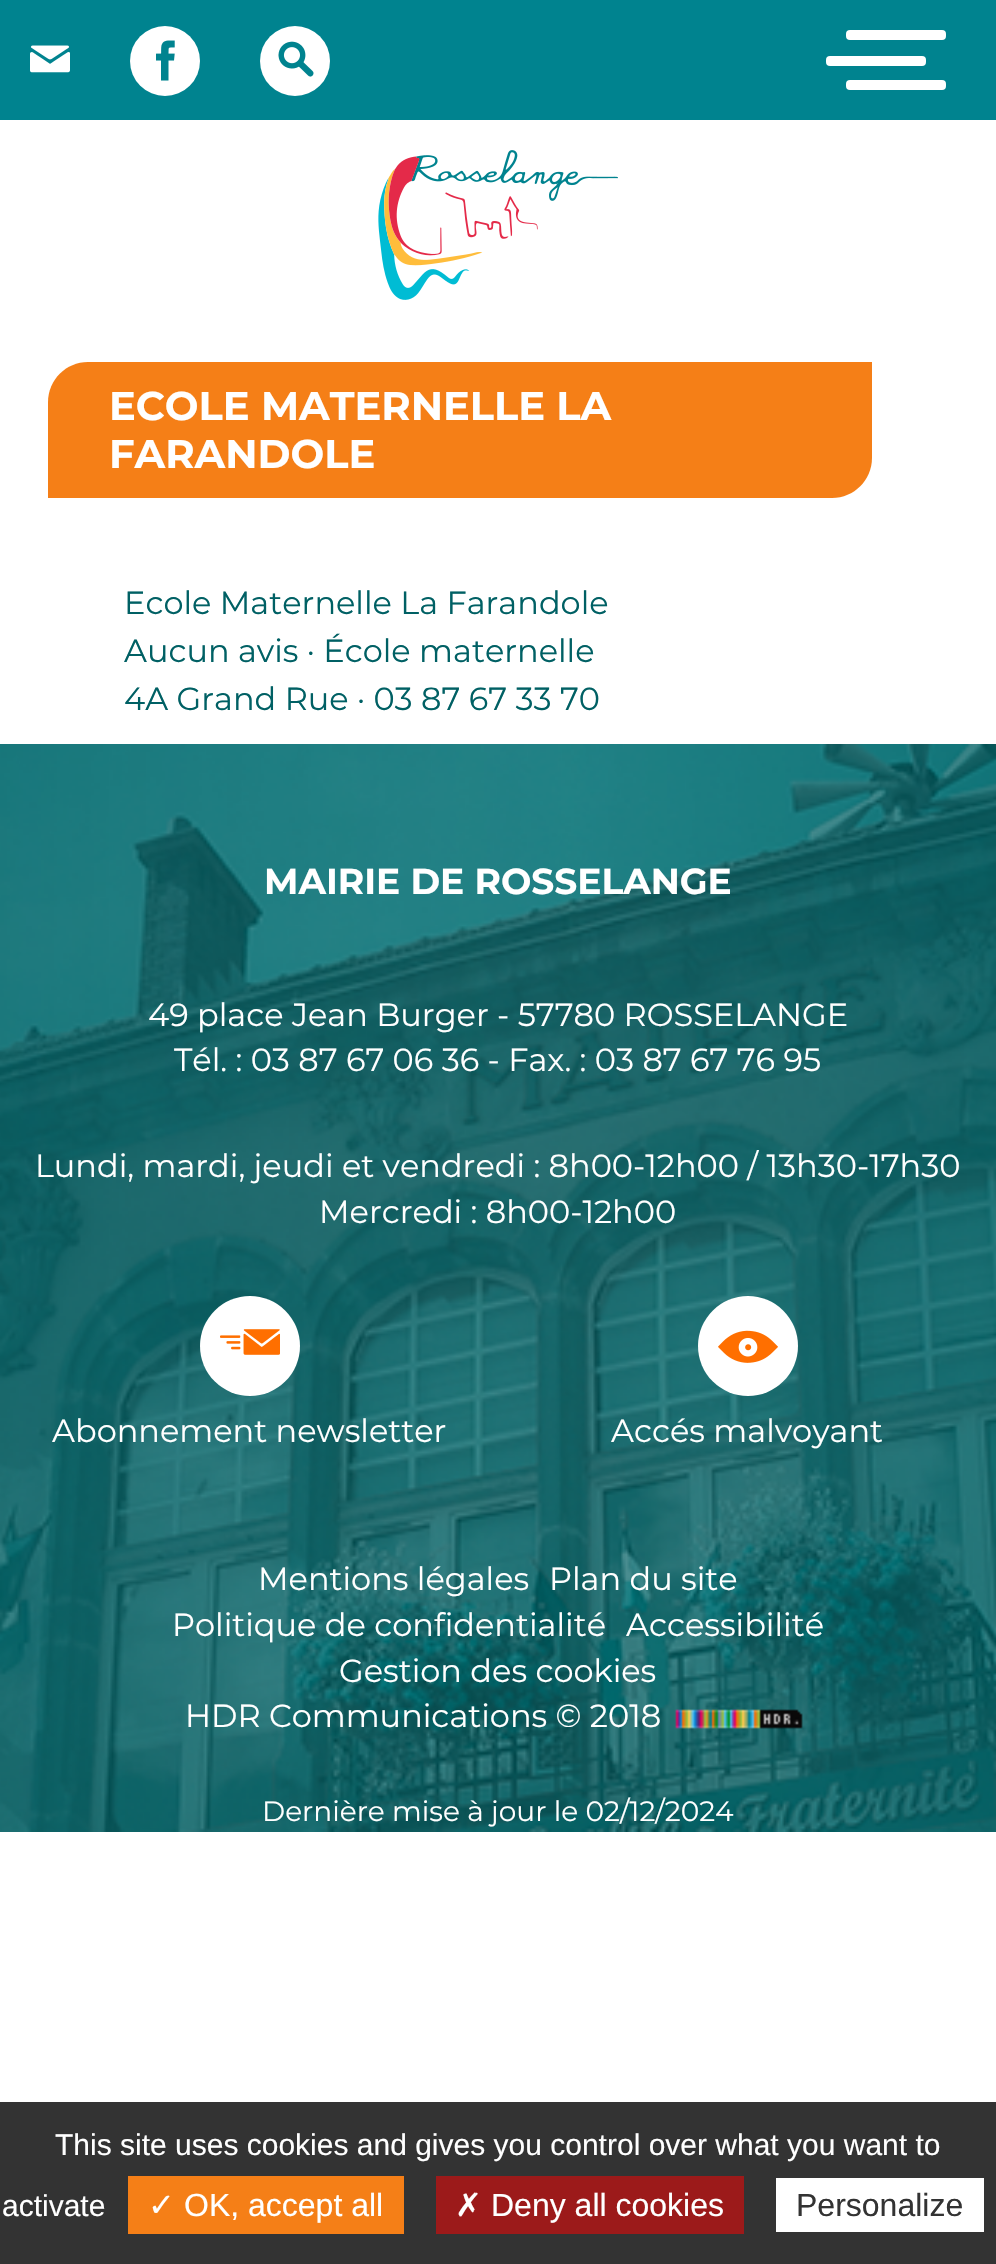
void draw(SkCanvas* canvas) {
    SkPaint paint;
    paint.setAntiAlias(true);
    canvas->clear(0xFFFFFFFF);
    paint.setColor(0xFF00838F);
    canvas->drawRect(SkRect::MakeXYWH(0, 0, 996, 120), paint);
    canvas->drawImageRect(SkImages::DeferredFromEncodedData(SkData::MakeFromFileName("img1.png")), SkRect::MakeXYWH(30, 45, 40, 28), SkSamplingOptions());
    paint.setColor(0xFFFFFFFF);
    canvas->drawCircle(165, 61, 35, paint);
    canvas->drawImageRect(SkImages::DeferredFromEncodedData(SkData::MakeFromFileName("img2.png")), SkRect::MakeXYWH(156, 40, 19, 41), SkSamplingOptions());
    canvas->drawCircle(295, 61, 35, paint);
    canvas->drawImageRect(SkImages::DeferredFromEncodedData(SkData::MakeFromFileName("img3.png")), SkRect::MakeXYWH(278, 41, 36, 36), SkSamplingOptions());
    canvas->drawRoundRect(SkRect::MakeXYWH(846, 30, 100, 10), 4, 4, paint);
    canvas->drawRoundRect(SkRect::MakeXYWH(826, 56, 100, 10), 4, 4, paint);
    canvas->drawRoundRect(SkRect::MakeXYWH(846, 80, 100, 10), 4, 4, paint);
    canvas->drawImageRect(SkImages::DeferredFromEncodedData(SkData::MakeFromFileName("img4.png")), SkRect::MakeXYWH(378, 150, 240, 150), SkSamplingOptions());
    paint.setColor(0xFFF57F17);
    canvas->drawPath(SkPathBuilder().moveTo(88, 362).lineTo(872, 362).lineTo(872, 458).cubicTo(872, 480, 854, 498, 832, 498).lineTo(48, 498).lineTo(48, 402).cubicTo(48, 380, 66, 362, 88, 362).close().detach(), paint);
    SkFont font1(fontMgr->matchFamilyStyle("Montserrat", SkFontStyle::Bold()), 40);
    font1.setSubpixel(true);
    paint.setColor(0xFFFFFFFF);
    canvas->drawString("ECOLE MATERNELLE LA", 109, 420, font1, paint);
    canvas->drawString("FARANDOLE", 109, 468, font1, paint);
    SkFont font2(fontMgr->matchFamilyStyle("Montserrat", SkFontStyle::Normal()), 32);
    font2.setSubpixel(true);
    paint.setColor(0xFF006064);
    canvas->drawString("Ecole Maternelle La Farandole", 124, 614, font2, paint);
    canvas->drawString("Aucun avis · École maternelle", 124, 662, font2, paint);
    canvas->drawString("4A Grand Rue · 03 87 67 33 70", 124, 710, font2, paint);
    paint.setColor(0xFF005F63);
    canvas->drawRect(SkRect::MakeXYWH(0, 744, 996, 1088), paint);
    canvas->drawImageRect(SkImages::DeferredFromEncodedData(SkData::MakeFromFileName("img5.png")), SkRect::MakeXYWH(0, 744, 996, 1088), SkSamplingOptions());
    SkFont font3(fontMgr->matchFamilyStyle("Montserrat", SkFontStyle::Bold()), 36);
    font3.setSubpixel(true);
    paint.setColor(0xFFFFFFFF);
    canvas->drawString("MAIRIE DE ROSSELANGE", 264, 894, font3, paint);
    canvas->drawString("49 place Jean Burger - 57780 ROSSELANGE", 148, 1026, font2, paint);
    canvas->drawString("Tél. : 03 87 67 06 36 - Fax. : 03 87 67 76 95", 174, 1071, font2, paint);
    canvas->drawString("Lundi, mardi, jeudi et vendredi : 8h00-12h00 / 13h30-17h30", 35, 1177, font2, paint);
    canvas->drawString("Mercredi : 8h00-12h00", 319, 1223, font2, paint);
    canvas->drawCircle(250, 1346, 50, paint);
    canvas->drawImageRect(SkImages::DeferredFromEncodedData(SkData::MakeFromFileName("img6.png")), SkRect::MakeXYWH(220, 1329, 60, 26), SkSamplingOptions());
    canvas->drawString("Abonnement newsletter", 52, 1442, font2, paint);
    canvas->drawCircle(748, 1346, 50, paint);
    canvas->drawImageRect(SkImages::DeferredFromEncodedData(SkData::MakeFromFileName("img7.png")), SkRect::MakeXYWH(718, 1330, 60, 33), SkSamplingOptions());
    canvas->drawString("Accés malvoyant", 611, 1442, font2, paint);
    canvas->drawString("Mentions légales", 258, 1590, font2, paint);
    canvas->drawString("Plan du site", 549, 1590, font2, paint);
    canvas->drawString("Politique de confidentialité", 172, 1636, font2, paint);
    canvas->drawString("Accessibilité", 626, 1636, font2, paint);
    canvas->drawString("Gestion des cookies", 339, 1682, font2, paint);
    canvas->drawString("HDR Communications © 2018", 185, 1727, font2, paint);
    canvas->drawImageRect(SkImages::DeferredFromEncodedData(SkData::MakeFromFileName("img8.png")), SkRect::MakeXYWH(675, 1709, 128, 20), SkSamplingOptions());
    SkFont font4(fontMgr->matchFamilyStyle("Montserrat", SkFontStyle::Normal()), 28);
    font4.setSubpixel(true);
    canvas->drawString("Dernière mise à jour le 02/12/2024", 262, 1821, font4, paint);
    paint.setColor(0xFF333333);
    canvas->drawRect(SkRect::MakeXYWH(0, 2102, 996, 162), paint);
    SkFont font5(fontMgr->matchFamilyStyle("Liberation Sans", SkFontStyle::Normal()), 30);
    font5.setSubpixel(true);
    paint.setColor(0xFFFFFFFF);
    canvas->drawString("This site uses cookies and gives you control over what you want to", 55, 2155, font5, paint);
    canvas->drawString("activate", 2, 2216, font5, paint);
    paint.setColor(0xFFF57F17);
    canvas->drawRect(SkRect::MakeXYWH(128, 2176, 276, 58), paint);
    SkFont font6(fontMgr->matchFamilyStyle("DejaVu Sans", SkFontStyle::Normal()), 32);
    font6.setSubpixel(true);
    paint.setColor(0xFFFFFFFF);
    canvas->drawString("✓", 148, 2216, font6, paint);
    SkFont font7(fontMgr->matchFamilyStyle("Liberation Sans", SkFontStyle::Normal()), 32);
    font7.setSubpixel(true);
    canvas->drawString("OK, accept all", 184, 2216, font7, paint);
    paint.setColor(0xFF9C1A1A);
    canvas->drawRect(SkRect::MakeXYWH(436, 2176, 308, 58), paint);
    paint.setColor(0xFFFFFFFF);
    canvas->drawString("✗", 455, 2216, font6, paint);
    canvas->drawString("Deny all cookies", 491, 2216, font7, paint);
    canvas->drawRect(SkRect::MakeXYWH(776, 2178, 208, 54), paint);
    paint.setColor(0xFF333333);
    canvas->drawString("Personalize", 796, 2216, font7, paint);
}
